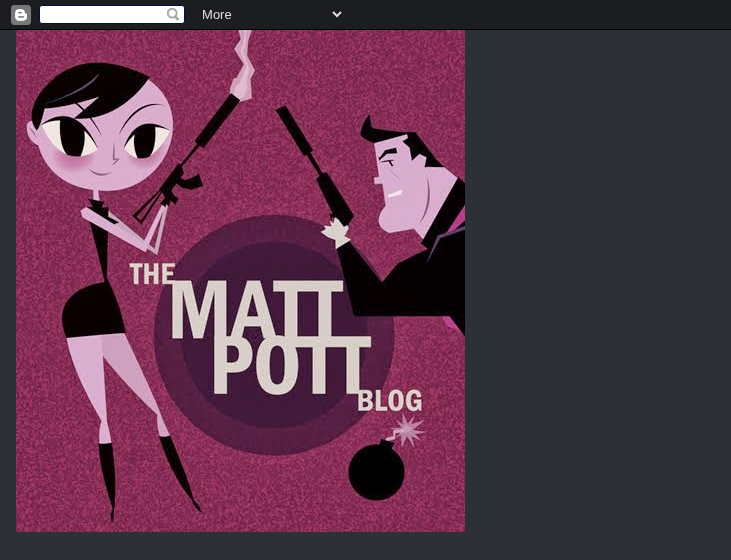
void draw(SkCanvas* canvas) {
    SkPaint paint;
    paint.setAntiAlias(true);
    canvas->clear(0xFF2D3037);
    canvas->drawImageRect(SkImages::DeferredFromEncodedData(SkData::MakeFromFileName("img1.png")), SkRect::MakeXYWH(0, 0, 731, 30), SkSamplingOptions());
    canvas->drawImageRect(SkImages::DeferredFromEncodedData(SkData::MakeFromFileName("img2.png")), SkRect::MakeXYWH(16, 30, 449, 502), SkSamplingOptions());
}
